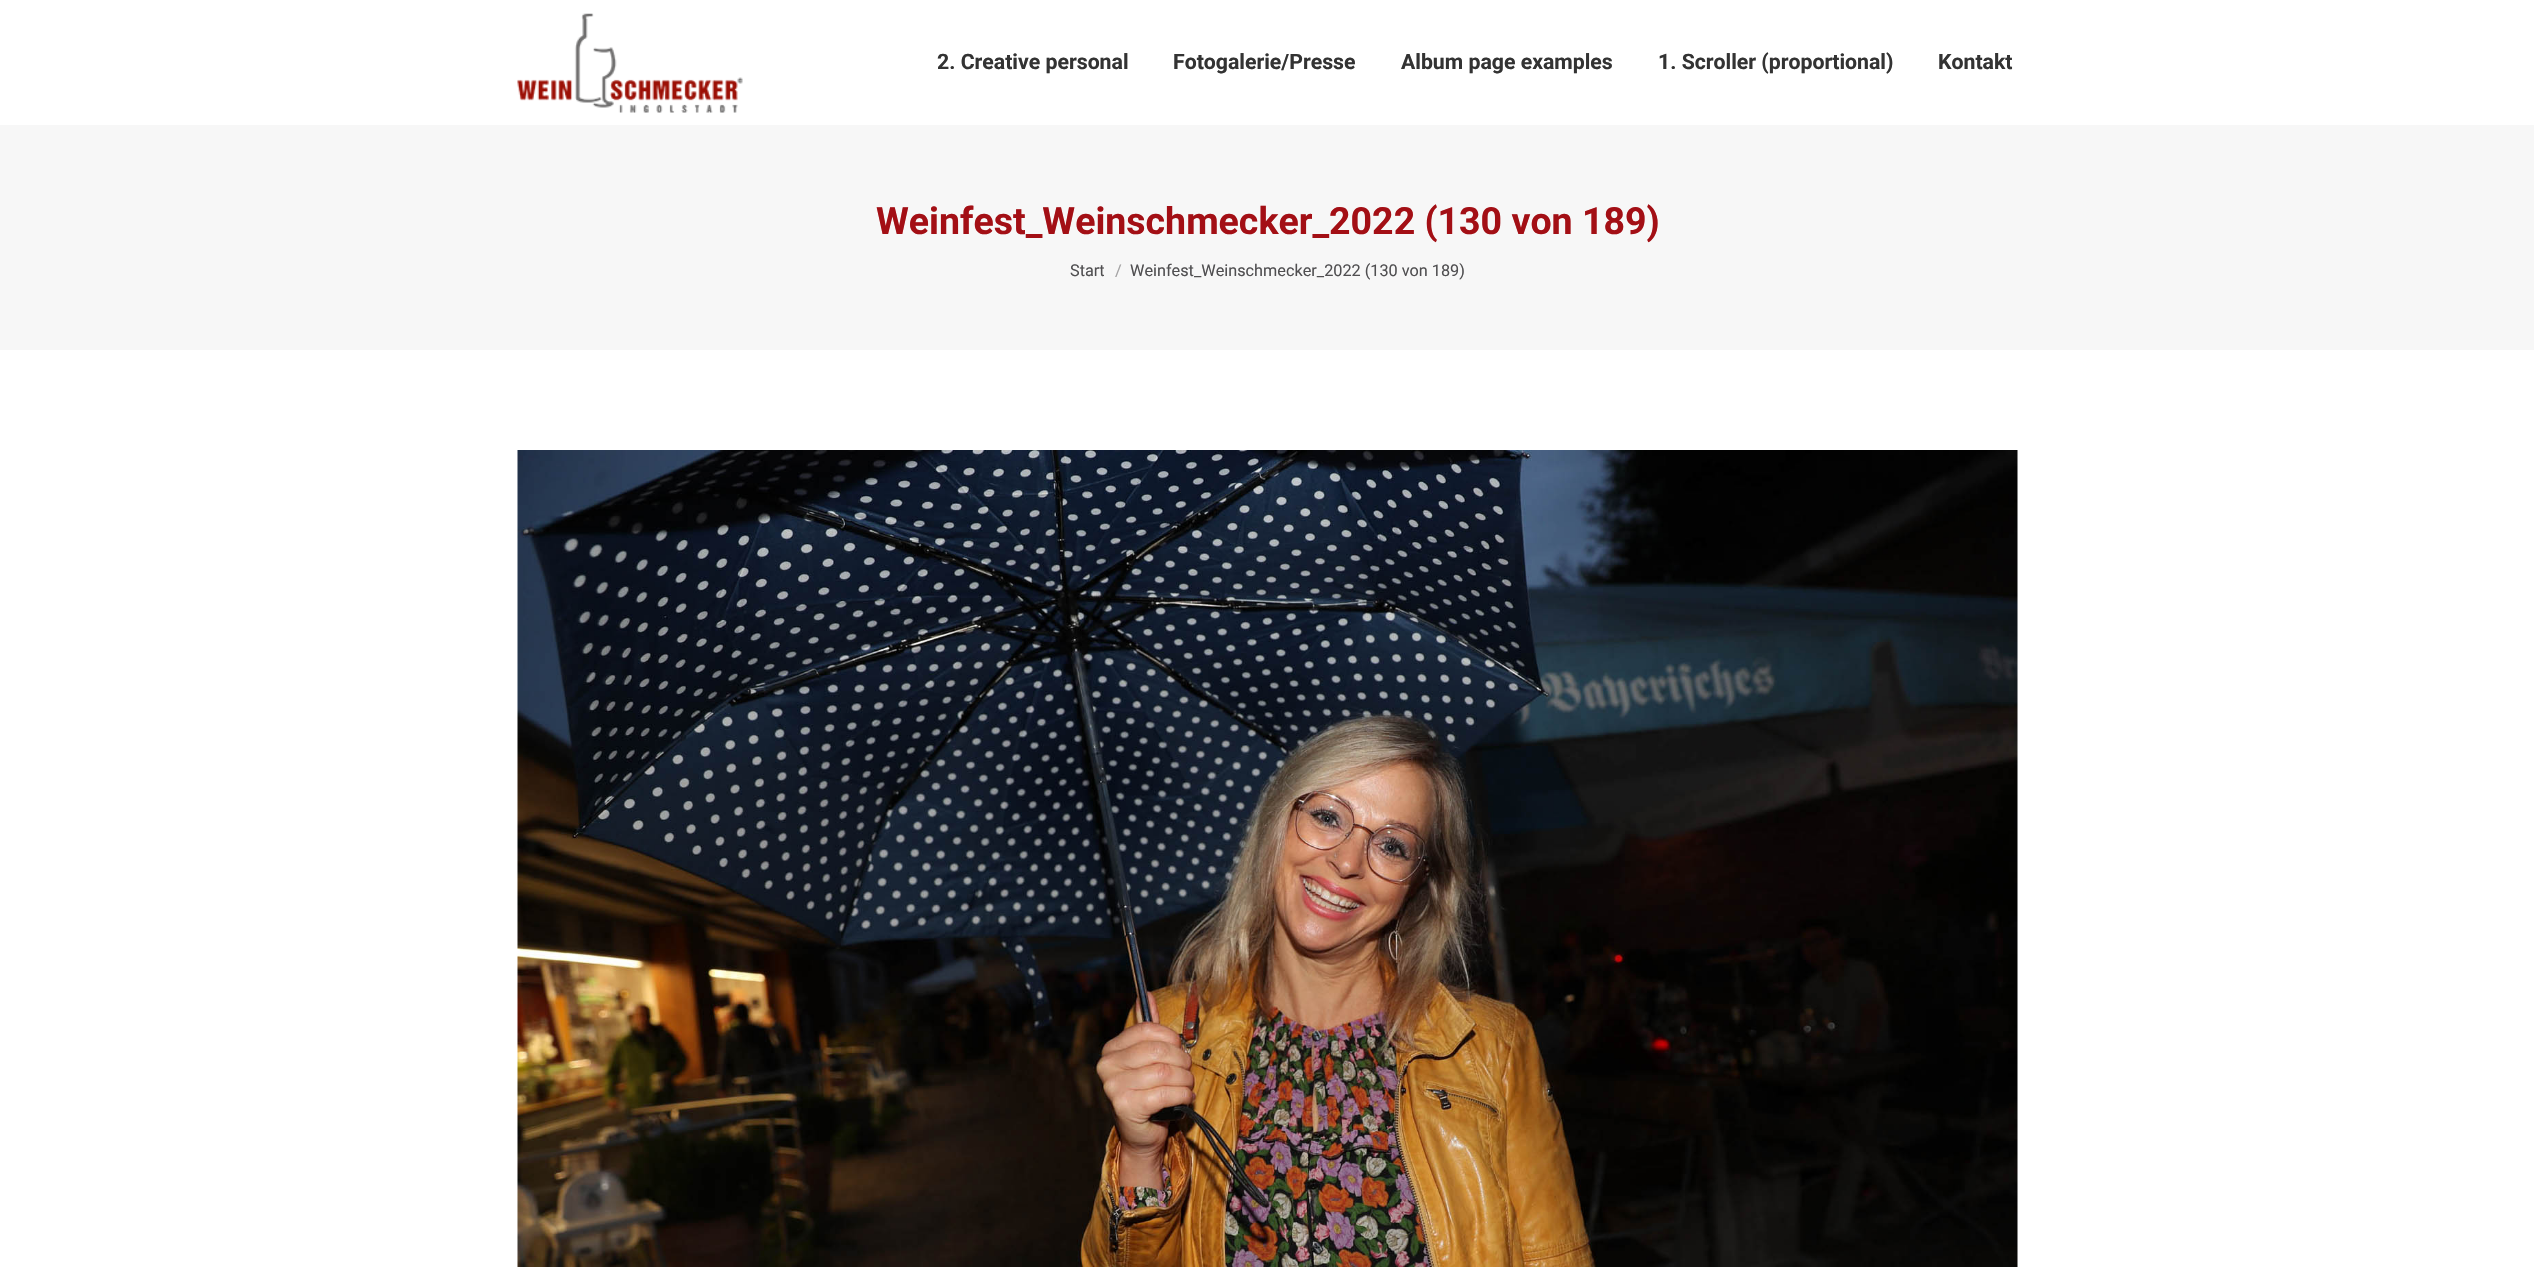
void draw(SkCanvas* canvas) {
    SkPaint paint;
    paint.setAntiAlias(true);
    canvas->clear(0xFFFFFFFF);
    canvas->drawImageRect(SkImages::DeferredFromEncodedData(SkData::MakeFromFileName("img1.png")), SkRect::MakeXYWH(517, 13, 226, 100), SkSamplingOptions());
    SkFont font1(fontMgr->matchFamilyStyle("Roboto", SkFontStyle::Bold()), 21.25f);
    font1.setSubpixel(true);
    paint.setColor(0xFF333333);
    canvas->drawString("2. Creative personal", 937, 69, font1, paint);
    canvas->drawString("Fotogalerie/Presse", 1173, 69, font1, paint);
    canvas->drawString("Album page examples", 1401, 69, font1, paint);
    canvas->drawString("1. Scroller (proportional)", 1658, 69, font1, paint);
    canvas->drawString("Kontakt", 1938, 69, font1, paint);
    paint.setColor(0xFFF7F7F7);
    canvas->drawRect(SkRect::MakeXYWH(0, 125, 2534, 225), paint);
    SkFont font2(fontMgr->matchFamilyStyle("Roboto", SkFontStyle::Bold()), 37.5f);
    font2.setSubpixel(true);
    paint.setColor(0xFFA30F15);
    canvas->drawString("Weinfest_Weinschmecker_2022 (130 von 189)", 876, 234, font2, paint);
    SkFont font3(fontMgr->matchFamilyStyle("Roboto", SkFontStyle::Normal()), 16.25f);
    font3.setSubpixel(true);
    paint.setColor(0xFF504F51);
    canvas->drawString("Start", 1070, 276, font3, paint);
    paint.setColor(0xFFA4A3A4);
    canvas->drawString("/", 1115, 276, font3, paint);
    paint.setColor(0xFF504F51);
    canvas->drawString("Weinfest_Weinschmecker_2022 (130 von 189)", 1130, 276, font3, paint);
    canvas->drawImageRect(SkImages::DeferredFromEncodedData(SkData::MakeFromFileName("img2.png")), SkRect::MakeXYWH(517, 450, 1501, 817), SkSamplingOptions());
}
